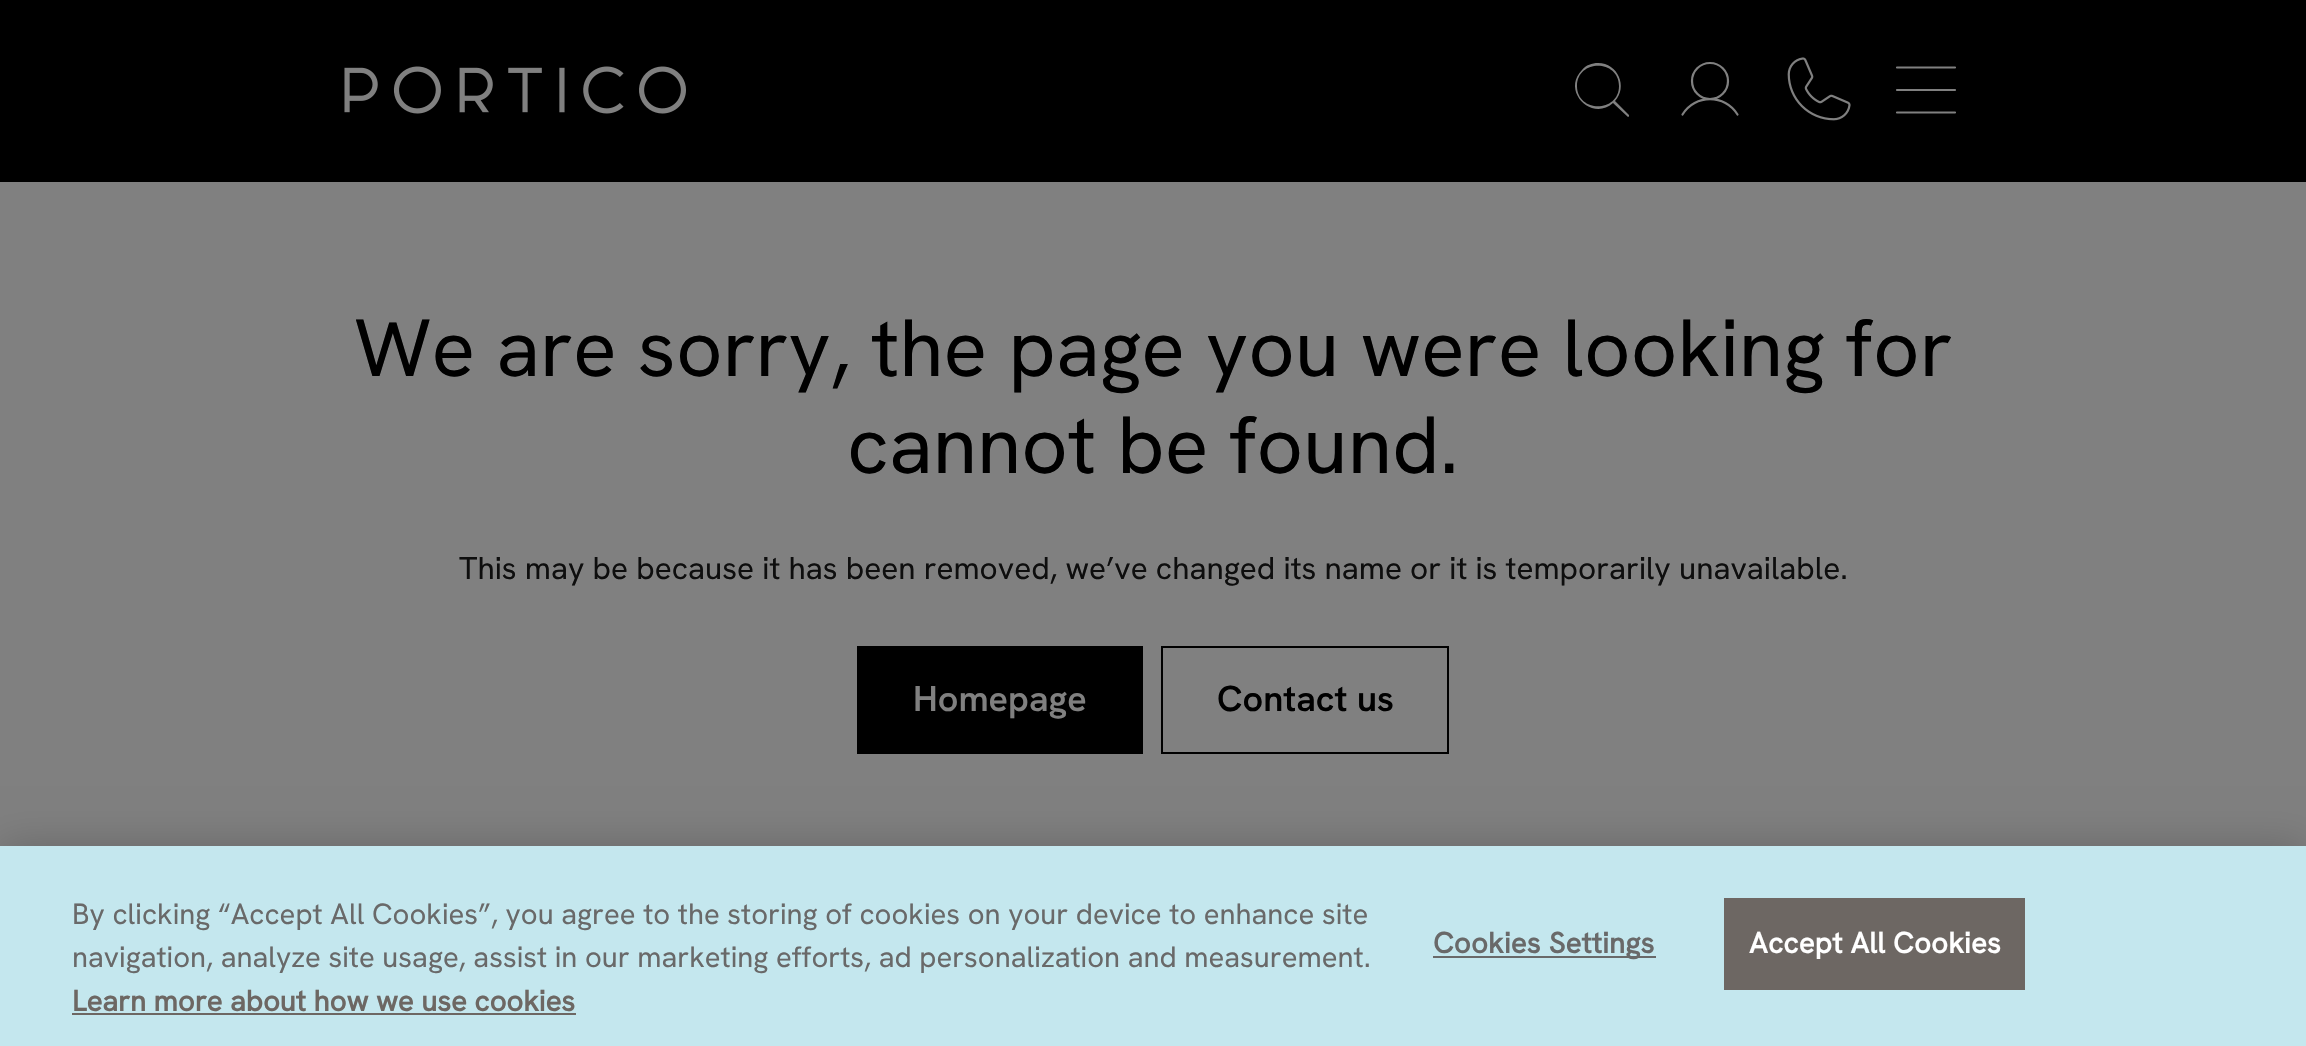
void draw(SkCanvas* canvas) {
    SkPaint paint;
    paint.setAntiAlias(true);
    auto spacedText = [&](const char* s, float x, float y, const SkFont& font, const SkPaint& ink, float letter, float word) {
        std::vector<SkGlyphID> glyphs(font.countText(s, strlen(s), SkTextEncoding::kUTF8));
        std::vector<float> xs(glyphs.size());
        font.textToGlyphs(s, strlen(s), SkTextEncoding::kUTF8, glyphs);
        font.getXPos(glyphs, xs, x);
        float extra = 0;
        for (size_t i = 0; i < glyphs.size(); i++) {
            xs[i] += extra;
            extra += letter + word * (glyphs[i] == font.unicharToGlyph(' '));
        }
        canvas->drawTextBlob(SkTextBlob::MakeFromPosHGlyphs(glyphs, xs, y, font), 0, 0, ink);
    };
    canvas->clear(0xFF808080);
    paint.setColor(0xFF000000);
    canvas->drawRect(SkRect::MakeXYWH(0, 0, 2306, 182), paint);
    canvas->drawImageRect(SkImages::DeferredFromEncodedData(SkData::MakeFromFileName("img1.png")), SkRect::MakeXYWH(344, 66, 342, 48), SkSamplingOptions());
    paint.setColor(0xFF808080);
    canvas->drawPath(SkPathBuilder(SkPathFillType::kEvenOdd).moveTo(1577, 86).cubicTo(1577, 59, 1619, 59, 1619, 86).cubicTo(1619, 113, 1577, 113, 1577, 86).close().moveTo(1598, 63).cubicTo(1592, 63, 1586, 65, 1582, 70).cubicTo(1561, 91, 1592, 122, 1613, 103).lineTo(1628, 117).cubicTo(1629, 117, 1629, 116, 1629, 115).lineTo(1615, 101).cubicTo(1628, 87, 1618, 63, 1598, 63).close().detach(), paint);
    paint.setStyle(SkPaint::kStroke_Style);
    paint.setStrokeWidth(2.2f);
    paint.setStrokeCap(SkPaint::kRound_Cap);
    paint.setStrokeJoin(SkPaint::kRound_Join);
    canvas->drawPath(SkPathBuilder().moveTo(1710, 99).cubicTo(1720, 99, 1728, 91, 1728, 81).cubicTo(1728, 71, 1720, 63, 1710, 63).cubicTo(1700, 63, 1692, 71, 1692, 81).cubicTo(1692, 91, 1700, 99, 1710, 99).close().moveTo(1682.5f, 114.5f).cubicTo(1695, 94, 1725, 94, 1737.5f, 114.5f).detach(), paint);
    canvas->drawImageRect(SkImages::DeferredFromEncodedData(SkData::MakeFromFileName("img2.png")), SkRect::MakeXYWH(1787, 57, 64, 64), SkSamplingOptions());
    canvas->drawPath(SkPathBuilder().moveTo(1897, 90).lineTo(1955, 90).moveTo(1897, 67.5f).lineTo(1955, 67.5f).moveTo(1897, 112.5f).lineTo(1955, 112.5f).detach(), paint);
    SkFont font1(fontMgr->matchFamilyStyle("Hanken Grotesk", SkFontStyle::Normal()), 81);
    font1.setSubpixel(true);
    paint.setStyle(SkPaint::kFill_Style);
    paint.setColor(0xFF000000);
    canvas->drawString("We are sorry, the page you were looking for", 354, 376, font1, paint);
    canvas->drawString("cannot be found.", 847, 473, font1, paint);
    SkFont font2(fontMgr->matchFamilyStyle("Hanken Grotesk", SkFontStyle::Normal()), 31.5f);
    font2.setSubpixel(true);
    paint.setColor(0xFF0E0E0E);
    canvas->drawString("This may be because it has been removed, we’ve changed its name or it is temporarily unavailable.", 459, 579, font2, paint);
    paint.setColor(0xFF000000);
    canvas->drawRect(SkRect::MakeXYWH(857, 646, 286, 108), paint);
    SkFont font3(fontMgr->matchFamilyStyle("Hanken Grotesk", SkFontStyle(600, SkFontStyle::kNormal_Width, SkFontStyle::kUpright_Slant)), 36);
    font3.setSubpixel(true);
    paint.setColor(0xFF808080);
    canvas->drawString("Homepage", 913, 711, font3, paint);
    paint.setStyle(SkPaint::kStroke_Style);
    paint.setStrokeWidth(2);
    paint.setStrokeCap(SkPaint::kButt_Cap);
    paint.setStrokeJoin(SkPaint::kMiter_Join);
    paint.setColor(0xFF000000);
    canvas->drawRect(SkRect::MakeXYWH(1162, 647, 286, 106), paint);
    paint.setStyle(SkPaint::kFill_Style);
    canvas->drawString("Contact us", 1217, 711, font3, paint);
    paint.setColor(0x33000000);
    paint.setMaskFilter(SkMaskFilter::MakeBlur(kNormal_SkBlurStyle, 20));
    canvas->drawRect(SkRect::MakeXYWH(0, 846, 2306, 200), paint);
    paint.setMaskFilter(nullptr);
    paint.setColor(0xFFC4E7EE);
    canvas->drawRect(SkRect::MakeXYWH(0, 846, 2306, 200), paint);
    SkFont font4(fontMgr->matchFamilyStyle("Hanken Grotesk", SkFontStyle::Normal()), 29.25f);
    font4.setSubpixel(true);
    paint.setColor(0xFF696969);
    canvas->drawString("By clicking “Accept All Cookies”, you agree to the storing of cookies on your device to enhance site", 72, 924, font4, paint);
    canvas->drawString("navigation, analyze site usage, assist in our marketing efforts, ad personalization and measurement.", 72, 967, font4, paint);
    SkFont font5(fontMgr->matchFamilyStyle("Hanken Grotesk", SkFontStyle::Bold()), 29.25f);
    font5.setSubpixel(true);
    paint.setColor(0xFF6D6763);
    canvas->drawString("Learn more about how we use cookies", 72, 1011, font5, paint);
    canvas->drawRect(SkRect::MakeXYWH(72, 1013, 504, 2), paint);
    paint.setColor(0xFF696969);
    canvas->drawRect(SkRect::MakeXYWH(1433, 956, 223, 2), paint);
    spacedText("Cookies Settings", 1433, 953, font5, paint, 0.25f, 0);
    paint.setColor(0xFF6D6763);
    canvas->drawRect(SkRect::MakeXYWH(1724, 898, 301, 92), paint);
    paint.setColor(0xFFFFFFFF);
    spacedText("Accept All Cookies", 1749, 953, font5, paint, 0.25f, 0);
}
